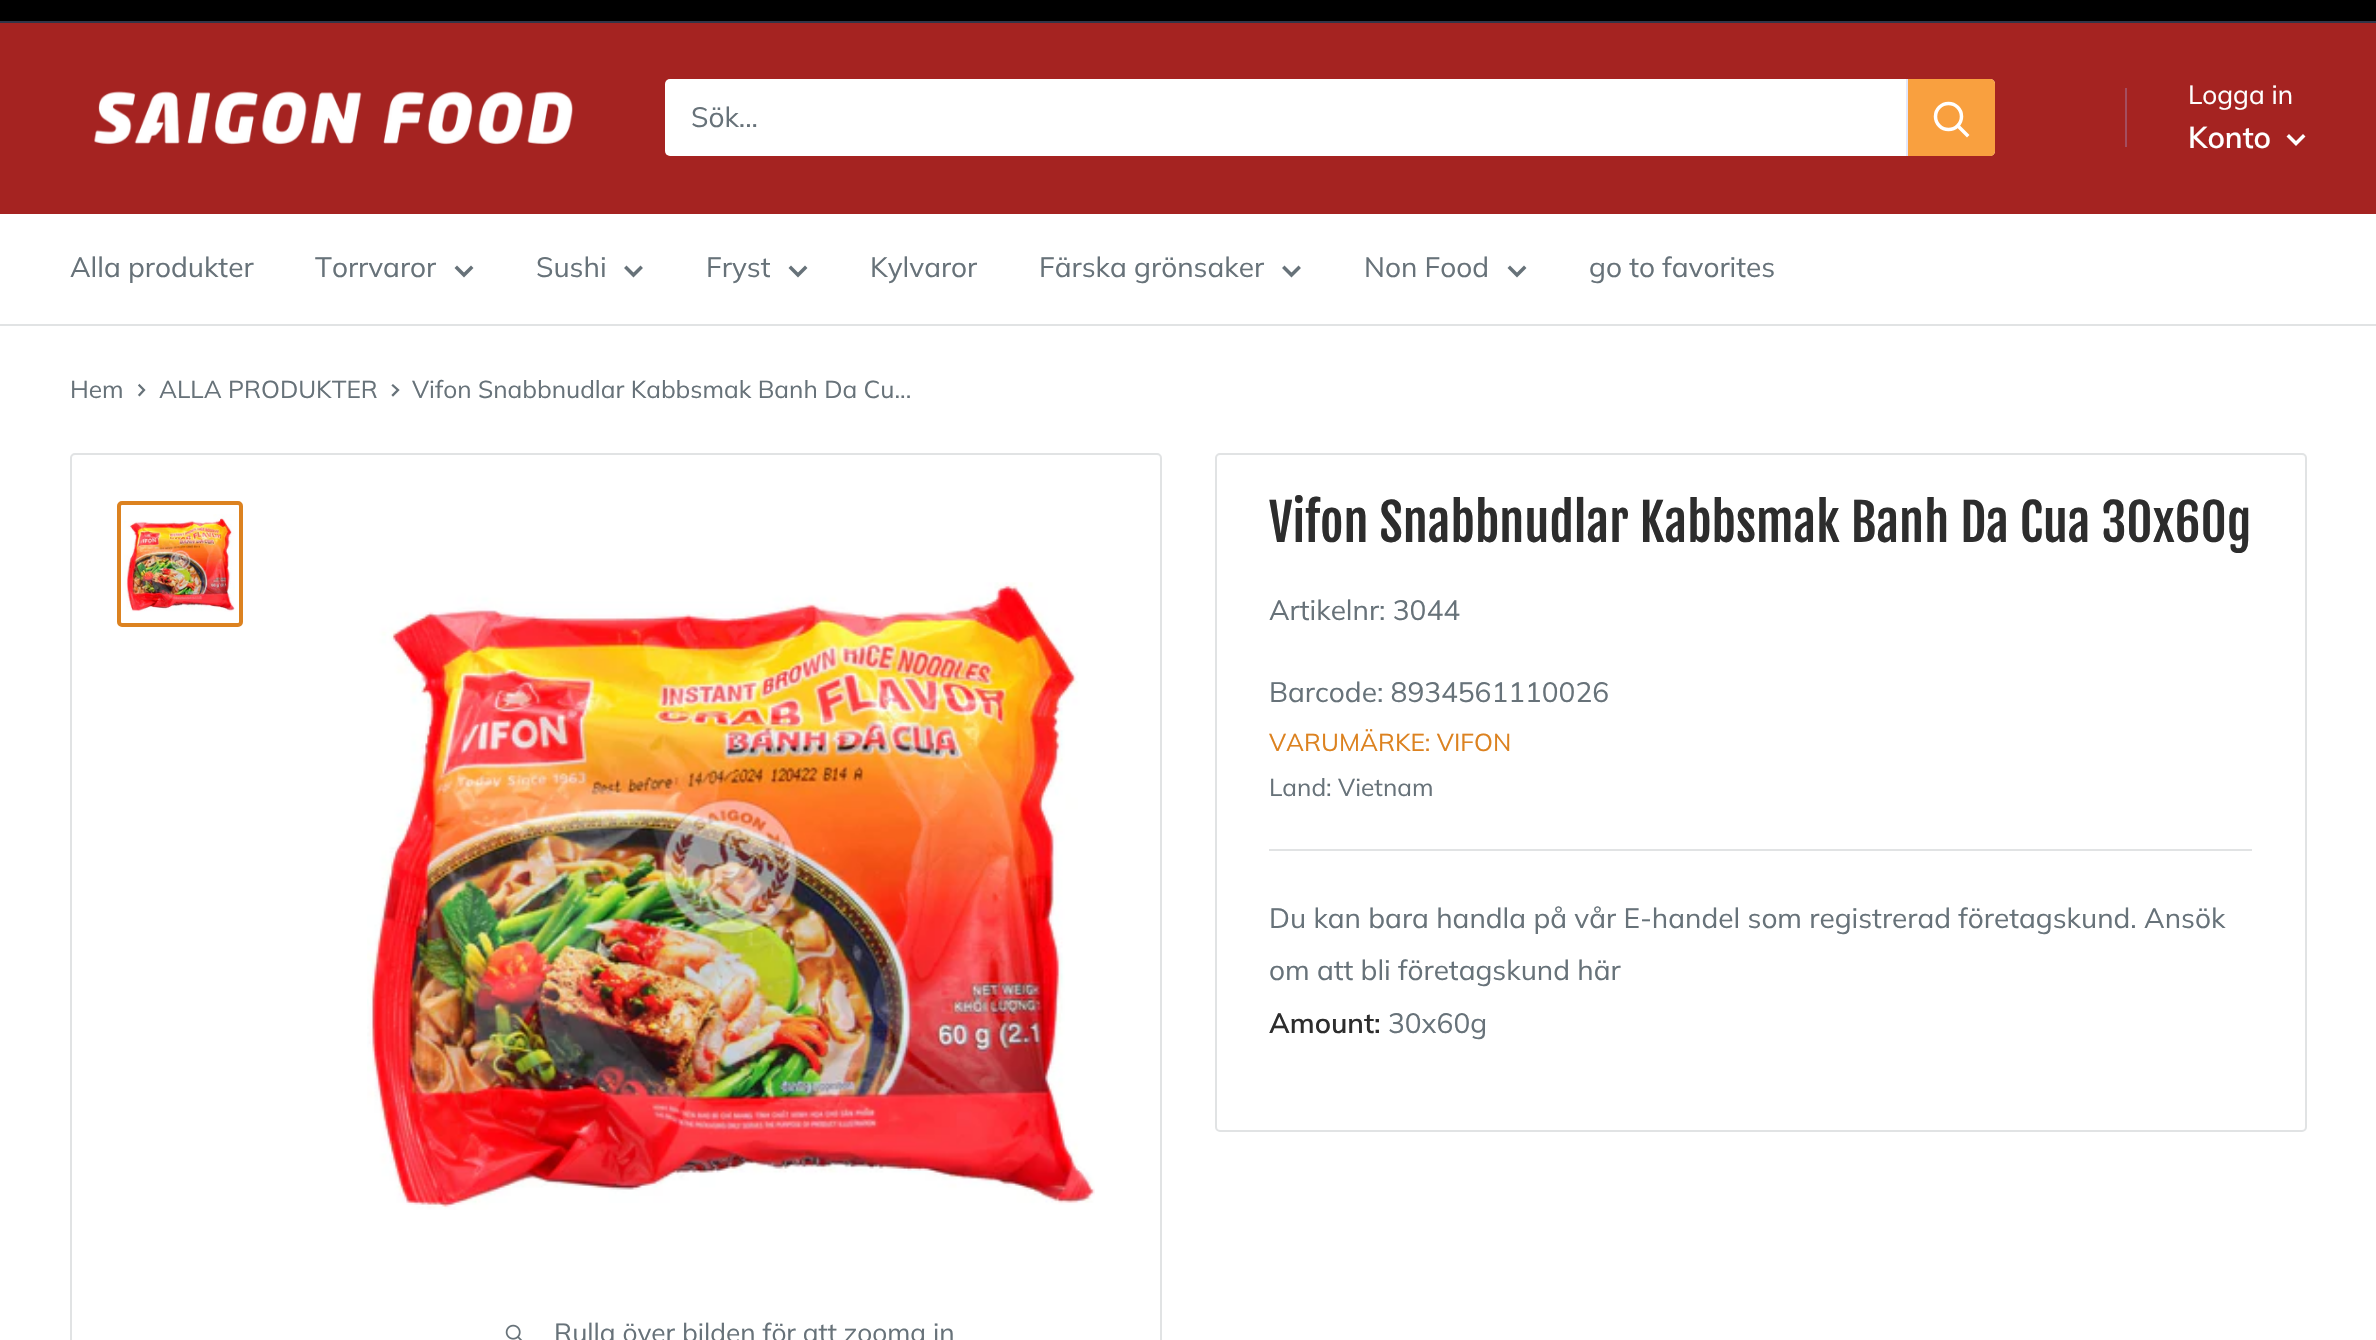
void draw(SkCanvas* canvas) {
    SkPaint paint;
    paint.setAntiAlias(true);
    canvas->clear(0xFFFFFFFF);
    paint.setColor(0xFF000000);
    canvas->drawRect(SkRect::MakeXYWH(0, 0, 2376, 21), paint);
    paint.setColor(0xFF313548);
    canvas->drawRect(SkRect::MakeXYWH(0, 21, 2376, 2), paint);
    paint.setColor(0xFFA52321);
    canvas->drawRect(SkRect::MakeXYWH(0, 23, 2376, 191), paint);
    canvas->drawImageRect(SkImages::DeferredFromEncodedData(SkData::MakeFromFileName("img1.png")), SkRect::MakeXYWH(94, 91, 479, 54), SkSamplingOptions());
    paint.setColor(0xFFFFFFFF);
    canvas->drawRoundRect(SkRect::MakeXYWH(665, 79, 1330, 77), 5, 5, paint);
    SkFont font1(fontMgr->matchFamilyStyle("Muli", SkFontStyle::Normal()), 28);
    font1.setSubpixel(true);
    paint.setColor(0xFF677279);
    canvas->drawString("Sök...", 691, 127, font1, paint);
    paint.setColor(0xFFE3E7FA);
    canvas->drawRect(SkRect::MakeXYWH(1906, 79, 2, 77), paint);
    paint.setColor(0xFFF9A03F);
    canvas->drawPath(SkPathBuilder().moveTo(1908, 79).lineTo(1990, 79).cubicTo(1993, 79, 1995, 81, 1995, 84).lineTo(1995, 151).cubicTo(1995, 154, 1993, 156, 1990, 156).lineTo(1908, 156).close().detach(), paint);
    paint.setStyle(SkPaint::kStroke_Style);
    paint.setStrokeWidth(3.5f);
    paint.setStrokeCap(SkPaint::kSquare_Cap);
    paint.setColor(0xFFFFFFFF);
    canvas->drawPath(SkPathBuilder().moveTo(1967, 135).lineTo(1958, 126).detach(), paint);
    paint.setStrokeCap(SkPaint::kButt_Cap);
    canvas->drawCircle(1948.5f, 116.5f, 13, paint);
    paint.setStyle(SkPaint::kFill_Style);
    paint.setColor(0xFFA44D5F);
    canvas->drawRect(SkRect::MakeXYWH(2125, 88, 2, 59), paint);
    SkFont font2(fontMgr->matchFamilyStyle("Muli", SkFontStyle::Normal()), 26.25f);
    font2.setSubpixel(true);
    paint.setColor(0xFFFFFFFF);
    canvas->drawString("Logga in", 2188, 104, font2, paint);
    SkFont font3(fontMgr->matchFamilyStyle("Muli", SkFontStyle(600, SkFontStyle::kNormal_Width, SkFontStyle::kUpright_Slant)), 30);
    font3.setSubpixel(true);
    canvas->drawString("Konto", 2188, 148, font3, paint);
    paint.setStyle(SkPaint::kStroke_Style);
    paint.setStrokeCap(SkPaint::kSquare_Cap);
    canvas->drawPath(SkPathBuilder().moveTo(2303, 136.5f).lineTo(2296, 143.5f).lineTo(2289, 136.5f).detach(), paint);
    paint.setStyle(SkPaint::kFill_Style);
    paint.setColor(0xFFE1E3E4);
    canvas->drawRect(SkRect::MakeXYWH(0, 324, 2376, 2), paint);
    paint.setColor(0xFF677279);
    canvas->drawString("Alla produkter", 70, 277, font1, paint);
    canvas->drawString("Torrvaror", 315, 277, font1, paint);
    paint.setStyle(SkPaint::kStroke_Style);
    canvas->drawPath(SkPathBuilder().moveTo(471, 268).lineTo(464, 275).lineTo(457, 268).detach(), paint);
    paint.setStyle(SkPaint::kFill_Style);
    canvas->drawString("Sushi", 536, 277, font1, paint);
    paint.setStyle(SkPaint::kStroke_Style);
    canvas->drawPath(SkPathBuilder().moveTo(640.5f, 268).lineTo(633.5f, 275).lineTo(626.5f, 268).detach(), paint);
    paint.setStyle(SkPaint::kFill_Style);
    canvas->drawString("Fryst", 706, 277, font1, paint);
    paint.setStyle(SkPaint::kStroke_Style);
    canvas->drawPath(SkPathBuilder().moveTo(805, 268).lineTo(798, 275).lineTo(791, 268).detach(), paint);
    paint.setStyle(SkPaint::kFill_Style);
    canvas->drawString("Kylvaror", 870, 277, font1, paint);
    canvas->drawString("Färska grönsaker", 1039, 277, font1, paint);
    paint.setStyle(SkPaint::kStroke_Style);
    canvas->drawPath(SkPathBuilder().moveTo(1298.5f, 268).lineTo(1291.5f, 275).lineTo(1284.5f, 268).detach(), paint);
    paint.setStyle(SkPaint::kFill_Style);
    canvas->drawString("Non Food", 1364, 277, font1, paint);
    paint.setStyle(SkPaint::kStroke_Style);
    canvas->drawPath(SkPathBuilder().moveTo(1524, 268).lineTo(1517, 275).lineTo(1510, 268).detach(), paint);
    paint.setStyle(SkPaint::kFill_Style);
    canvas->drawString("go to favorites", 1589, 277, font1, paint);
    SkFont font4(fontMgr->matchFamilyStyle("Muli", SkFontStyle::Normal()), 24.5f);
    font4.setSubpixel(true);
    canvas->drawString("Hem", 70, 398, font4, paint);
    paint.setStyle(SkPaint::kStroke_Style);
    paint.setStrokeWidth(2.3f);
    canvas->drawPath(SkPathBuilder().moveTo(139.5f, 385.5f).lineTo(144, 390).lineTo(139.5f, 395).detach(), paint);
    paint.setStyle(SkPaint::kFill_Style);
    canvas->drawString("ALLA PRODUKTER", 159, 398, font4, paint);
    paint.setStyle(SkPaint::kStroke_Style);
    canvas->drawPath(SkPathBuilder().moveTo(393, 385.5f).lineTo(398, 390).lineTo(393, 395).detach(), paint);
    paint.setStyle(SkPaint::kFill_Style);
    canvas->drawString("Vifon Snabbnudlar Kabbsmak Banh Da Cu...", 412, 398, font4, paint);
    paint.setStyle(SkPaint::kStroke_Style);
    paint.setStrokeWidth(2);
    paint.setStrokeCap(SkPaint::kButt_Cap);
    paint.setColor(0xFFE1E3E4);
    canvas->drawRoundRect(SkRect::MakeXYWH(1216, 454, 1090, 677), 4, 4, paint);
    SkFont font5(fontMgr->matchFamilyStyle("Fjalla One", SkFontStyle::Normal()), 50.75f);
    font5.setSubpixel(true);
    paint.setStyle(SkPaint::kFill_Style);
    paint.setColor(0xFF2D2D2D);
    canvas->drawString("Vifon Snabbnudlar Kabbsmak Banh Da Cua 30x60g", 1269, 542, font5, paint);
    paint.setColor(0xFF677279);
    canvas->drawString("Artikelnr: 3044", 1269, 620, font1, paint);
    canvas->drawString("Barcode: 8934561110026", 1269, 702, font1, paint);
    paint.setColor(0xFFDC8220);
    canvas->drawString("VARUMÄRKE: VIFON", 1269, 751, font4, paint);
    paint.setColor(0xFF677279);
    canvas->drawString("Land: Vietnam", 1269, 796, font4, paint);
    paint.setColor(0xFFE1E3E4);
    canvas->drawRect(SkRect::MakeXYWH(1269, 849, 983, 2), paint);
    paint.setColor(0xFF677279);
    canvas->drawString("Du kan bara handla på vår E-handel som registrerad företagskund. Ansök", 1269, 928, font1, paint);
    canvas->drawString("om att bli företagskund här", 1269, 980, font1, paint);
    SkFont font6(fontMgr->matchFamilyStyle("Muli", SkFontStyle(600, SkFontStyle::kNormal_Width, SkFontStyle::kUpright_Slant)), 28);
    font6.setSubpixel(true);
    paint.setColor(0xFF2D2D2D);
    canvas->drawString("Amount:", 1269, 1033, font6, paint);
    paint.setColor(0xFF677279);
    canvas->drawString("30x60g", 1388, 1033, font1, paint);
    paint.setStyle(SkPaint::kStroke_Style);
    paint.setColor(0xFFE1E3E4);
    canvas->drawRoundRect(SkRect::MakeXYWH(71, 454, 1090, 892), 4, 4, paint);
    paint.setStrokeWidth(4);
    paint.setColor(0xFFDC8220);
    canvas->drawRoundRect(SkRect::MakeXYWH(119, 503, 122, 122), 3, 3, paint);
    canvas->drawImageRect(SkImages::DeferredFromEncodedData(SkData::MakeFromFileName("img2.png")), SkRect::MakeXYWH(124, 514, 111, 98), SkSamplingOptions());
    canvas->drawImageRect(SkImages::DeferredFromEncodedData(SkData::MakeFromFileName("img3.png")), SkRect::MakeXYWH(367, 582, 728, 628), SkSamplingOptions());
    canvas->drawImageRect(SkImages::DeferredFromEncodedData(SkData::MakeFromFileName("img4.png")), SkRect::MakeXYWH(505, 1324, 18, 16), SkSamplingOptions());
    paint.setStyle(SkPaint::kFill_Style);
    paint.setColor(0xFF677279);
    canvas->drawString("Rulla över bilden för att zooma in", 554, 1342, font2, paint);
}
